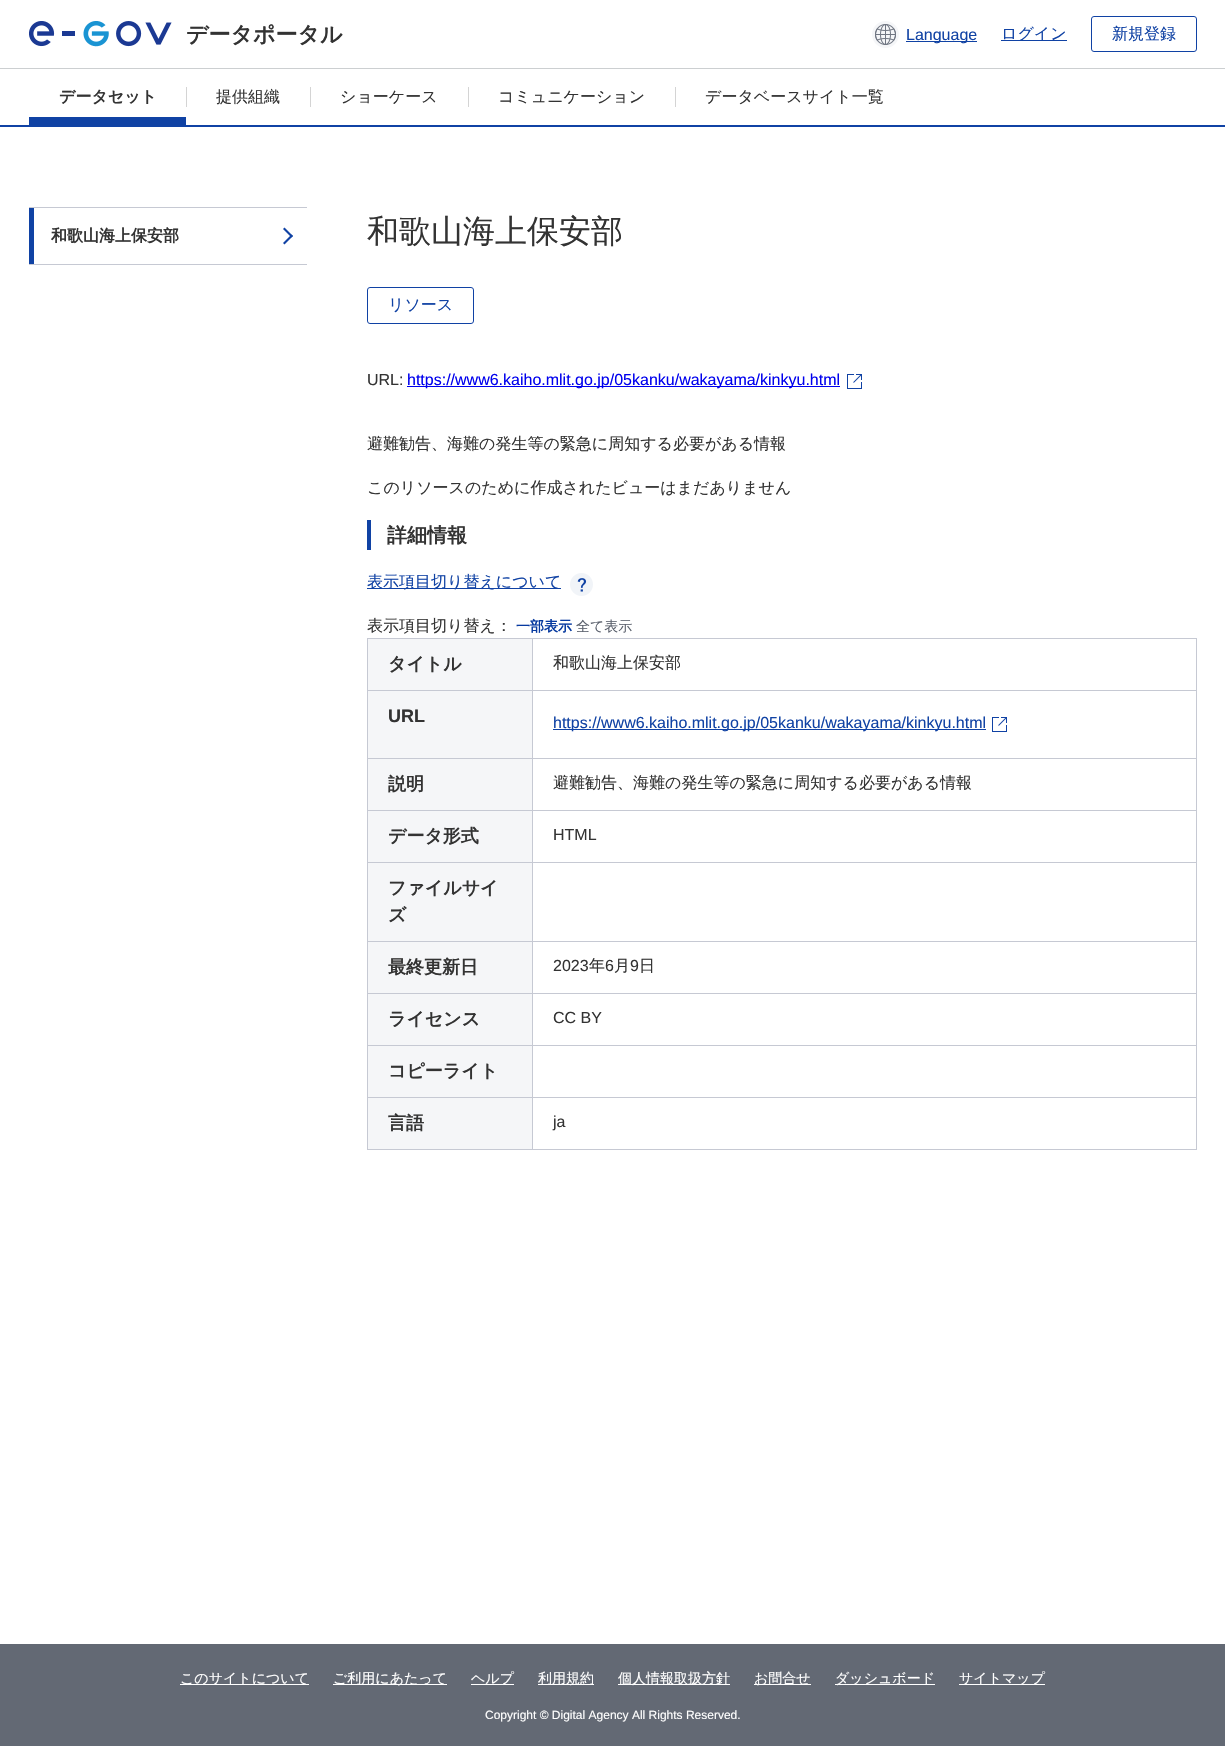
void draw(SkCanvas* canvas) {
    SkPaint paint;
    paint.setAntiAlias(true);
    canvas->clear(0xFFFFFFFF);
    paint.setColor(0xFFCCCFD1);
    canvas->drawRect(SkRect::MakeXYWH(0, 68, 1225, 1), paint);
    canvas->drawImageRect(SkImages::DeferredFromEncodedData(SkData::MakeFromFileName("img1.png")), SkRect::MakeXYWH(29, 21, 143, 26), SkSamplingOptions());
    SkFont font1(fontMgr->matchFamilyStyle("WenQuanYi Zen Hei", SkFontStyle::Bold()), 22);
    font1.setSubpixel(true);
    paint.setColor(0xFF333333);
    canvas->drawString("データポータル", 186, 42, font1, paint);
    canvas->drawImageRect(SkImages::DeferredFromEncodedData(SkData::MakeFromFileName("img2.png")), SkRect::MakeXYWH(872, 21, 27, 27), SkSamplingOptions());
    paint.setColor(0xFF1042A4);
    canvas->drawRect(SkRect::MakeXYWH(906, 41, 71, 1), paint);
    SkFont font2(fontMgr->matchFamilyStyle("Liberation Sans", SkFontStyle::Normal()), 16);
    font2.setSubpixel(true);
    canvas->drawString("Language", 906, 40, font2, paint);
    canvas->drawRect(SkRect::MakeXYWH(1001, 40, 66, 1), paint);
    SkFont font3(fontMgr->matchFamilyStyle("WenQuanYi Zen Hei", SkFontStyle(500, SkFontStyle::kNormal_Width, SkFontStyle::kUpright_Slant)), 16);
    font3.setSubpixel(true);
    canvas->drawString("ログイン", 1001, 39, font3, paint);
    paint.setStyle(SkPaint::kStroke_Style);
    paint.setStrokeWidth(1);
    canvas->drawRoundRect(SkRect::MakeXYWH(1091.5f, 16.5f, 105, 35), 2.5f, 2.5f, paint);
    paint.setStyle(SkPaint::kFill_Style);
    canvas->drawString("新規登録", 1112, 39, font3, paint);
    canvas->drawRect(SkRect::MakeXYWH(0, 125, 1225, 2), paint);
    SkFont font4(fontMgr->matchFamilyStyle("WenQuanYi Zen Hei", SkFontStyle::Bold()), 16);
    font4.setSubpixel(true);
    paint.setColor(0xFF333333);
    canvas->drawString("データセット", 59, 102, font4, paint);
    paint.setColor(0xFF1042A4);
    canvas->drawRect(SkRect::MakeXYWH(29, 117, 157, 8), paint);
    paint.setColor(0xFFD4D4D4);
    canvas->drawRect(SkRect::MakeXYWH(186, 87, 1, 20), paint);
    paint.setColor(0xFF333333);
    canvas->drawString("提供組織", 216, 102, font3, paint);
    paint.setColor(0xFFD4D4D4);
    canvas->drawRect(SkRect::MakeXYWH(310, 87, 1, 20), paint);
    paint.setColor(0xFF333333);
    canvas->drawString("ショーケース", 340, 102, font3, paint);
    paint.setColor(0xFFD4D4D4);
    canvas->drawRect(SkRect::MakeXYWH(468, 87, 1, 20), paint);
    paint.setColor(0xFF333333);
    canvas->drawString("コミュニケーション", 498, 102, font3, paint);
    paint.setColor(0xFFD4D4D4);
    canvas->drawRect(SkRect::MakeXYWH(675, 87, 1, 20), paint);
    paint.setColor(0xFF333333);
    canvas->drawString("データベースサイト一覧", 705, 102, font3, paint);
    paint.setColor(0xFFC6C9D3);
    canvas->drawRect(SkRect::MakeXYWH(29, 207, 278, 1), paint);
    canvas->drawRect(SkRect::MakeXYWH(29, 264, 278, 1), paint);
    paint.setColor(0xFF1042A4);
    canvas->drawRect(SkRect::MakeXYWH(29, 208, 5, 56), paint);
    paint.setColor(0xFF333333);
    canvas->drawString("和歌山海上保安部", 51, 241, font4, paint);
    paint.setColor(0xFF1042A4);
    canvas->drawPath(SkPathBuilder().moveTo(283, 229).lineTo(284.5f, 227.5f).lineTo(293, 236).lineTo(291.5f, 237.5f).close().detach(), paint);
    canvas->drawPath(SkPathBuilder().moveTo(283, 243).lineTo(291.5f, 234.5f).lineTo(293, 236).lineTo(284.5f, 244.5f).close().detach(), paint);
    SkFont font5(fontMgr->matchFamilyStyle("WenQuanYi Zen Hei", SkFontStyle(500, SkFontStyle::kNormal_Width, SkFontStyle::kUpright_Slant)), 32);
    font5.setSubpixel(true);
    paint.setColor(0xFF333333);
    canvas->drawString("和歌山海上保安部", 367, 242, font5, paint);
    paint.setStyle(SkPaint::kStroke_Style);
    paint.setColor(0xFF1042A4);
    canvas->drawRoundRect(SkRect::MakeXYWH(367.5f, 287.5f, 106, 36), 2.5f, 2.5f, paint);
    paint.setStyle(SkPaint::kFill_Style);
    canvas->drawString("リソース", 388, 310, font3, paint);
    paint.setColor(0xFF333333);
    canvas->drawString("URL:", 367, 385, font2, paint);
    paint.setColor(0xFF0000EE);
    canvas->drawRect(SkRect::MakeXYWH(407, 386, 433, 1), paint);
    canvas->drawString("https://www6.kaiho.mlit.go.jp/05kanku/wakayama/kinkyu.html", 407, 385, font2, paint);
    canvas->drawImageRect(SkImages::DeferredFromEncodedData(SkData::MakeFromFileName("img3.png")), SkRect::MakeXYWH(847, 374, 15, 15), SkSamplingOptions());
    paint.setColor(0xFF333333);
    canvas->drawString("避難勧告、海難の発生等の緊急に周知する必要がある情報", 367, 449, font3, paint);
    canvas->drawString("このリソースのために作成されたビューはまだありません", 367, 493, font3, paint);
    paint.setColor(0xFF1042A4);
    canvas->drawRect(SkRect::MakeXYWH(367, 520, 4, 30), paint);
    SkFont font6(fontMgr->matchFamilyStyle("WenQuanYi Zen Hei", SkFontStyle::Bold()), 20);
    font6.setSubpixel(true);
    paint.setColor(0xFF333333);
    canvas->drawString("詳細情報", 387, 542, font6, paint);
    paint.setColor(0xFF1042A4);
    canvas->drawRect(SkRect::MakeXYWH(367, 588, 194, 1), paint);
    canvas->drawString("表示項目切り替えについて", 367, 587, font3, paint);
    canvas->drawImageRect(SkImages::DeferredFromEncodedData(SkData::MakeFromFileName("img4.png")), SkRect::MakeXYWH(570, 573, 23, 23), SkSamplingOptions());
    paint.setColor(0xFF333333);
    canvas->drawString("表示項目切り替え：", 367, 631, font3, paint);
    SkFont font7(fontMgr->matchFamilyStyle("WenQuanYi Zen Hei", SkFontStyle::Bold()), 14);
    font7.setSubpixel(true);
    paint.setColor(0xFF073AA0);
    canvas->drawString("一部表示", 516, 631, font7, paint);
    SkFont font8(fontMgr->matchFamilyStyle("WenQuanYi Zen Hei", SkFontStyle(500, SkFontStyle::kNormal_Width, SkFontStyle::kUpright_Slant)), 14);
    font8.setSubpixel(true);
    paint.setColor(0xFF5A606C);
    canvas->drawString("全て表示", 576, 631, font8, paint);
    paint.setColor(0xFFF5F6F8);
    canvas->drawRect(SkRect::MakeXYWH(368, 639, 164, 51), paint);
    paint.setColor(0xFFC6C9D3);
    canvas->drawRect(SkRect::MakeXYWH(532, 638, 665, 1), paint);
    canvas->drawRect(SkRect::MakeXYWH(532, 690, 665, 1), paint);
    canvas->drawRect(SkRect::MakeXYWH(532, 758, 665, 1), paint);
    canvas->drawRect(SkRect::MakeXYWH(532, 810, 665, 1), paint);
    canvas->drawRect(SkRect::MakeXYWH(532, 862, 665, 1), paint);
    canvas->drawRect(SkRect::MakeXYWH(532, 941, 665, 1), paint);
    canvas->drawRect(SkRect::MakeXYWH(532, 993, 665, 1), paint);
    canvas->drawRect(SkRect::MakeXYWH(532, 1045, 665, 1), paint);
    canvas->drawRect(SkRect::MakeXYWH(532, 1097, 665, 1), paint);
    canvas->drawRect(SkRect::MakeXYWH(1196, 1097, 1, 53), paint);
    canvas->drawRect(SkRect::MakeXYWH(532, 1149, 665, 1), paint);
    canvas->drawRect(SkRect::MakeXYWH(532, 1097, 1, 53), paint);
    canvas->drawRect(SkRect::MakeXYWH(367, 1097, 166, 1), paint);
    canvas->drawRect(SkRect::MakeXYWH(532, 1045, 1, 53), paint);
    canvas->drawRect(SkRect::MakeXYWH(367, 1045, 166, 1), paint);
    canvas->drawRect(SkRect::MakeXYWH(532, 993, 1, 53), paint);
    canvas->drawRect(SkRect::MakeXYWH(367, 993, 166, 1), paint);
    canvas->drawRect(SkRect::MakeXYWH(532, 941, 1, 53), paint);
    canvas->drawRect(SkRect::MakeXYWH(367, 941, 166, 1), paint);
    canvas->drawRect(SkRect::MakeXYWH(532, 862, 1, 80), paint);
    canvas->drawRect(SkRect::MakeXYWH(367, 862, 166, 1), paint);
    canvas->drawRect(SkRect::MakeXYWH(532, 810, 1, 53), paint);
    canvas->drawRect(SkRect::MakeXYWH(367, 810, 166, 1), paint);
    canvas->drawRect(SkRect::MakeXYWH(532, 758, 1, 53), paint);
    canvas->drawRect(SkRect::MakeXYWH(367, 758, 166, 1), paint);
    canvas->drawRect(SkRect::MakeXYWH(532, 690, 1, 69), paint);
    canvas->drawRect(SkRect::MakeXYWH(367, 690, 166, 1), paint);
    canvas->drawRect(SkRect::MakeXYWH(532, 638, 1, 53), paint);
    canvas->drawRect(SkRect::MakeXYWH(367, 638, 166, 1), paint);
    canvas->drawRect(SkRect::MakeXYWH(367, 1149, 166, 1), paint);
    canvas->drawRect(SkRect::MakeXYWH(367, 1097, 1, 53), paint);
    canvas->drawRect(SkRect::MakeXYWH(367, 1045, 1, 53), paint);
    canvas->drawRect(SkRect::MakeXYWH(367, 993, 1, 53), paint);
    canvas->drawRect(SkRect::MakeXYWH(367, 941, 1, 53), paint);
    canvas->drawRect(SkRect::MakeXYWH(367, 862, 1, 80), paint);
    canvas->drawRect(SkRect::MakeXYWH(367, 810, 1, 53), paint);
    canvas->drawRect(SkRect::MakeXYWH(367, 758, 1, 53), paint);
    canvas->drawRect(SkRect::MakeXYWH(367, 690, 1, 69), paint);
    canvas->drawRect(SkRect::MakeXYWH(367, 638, 1, 53), paint);
    SkFont font9(fontMgr->matchFamilyStyle("WenQuanYi Zen Hei", SkFontStyle::Bold()), 18);
    font9.setSubpixel(true);
    paint.setColor(0xFF333333);
    canvas->drawString("タイトル", 388, 670, font9, paint);
    paint.setColor(0xFFC6C9D3);
    canvas->drawRect(SkRect::MakeXYWH(1196, 1045, 1, 53), paint);
    canvas->drawRect(SkRect::MakeXYWH(1196, 993, 1, 53), paint);
    canvas->drawRect(SkRect::MakeXYWH(1196, 941, 1, 53), paint);
    canvas->drawRect(SkRect::MakeXYWH(1196, 862, 1, 80), paint);
    canvas->drawRect(SkRect::MakeXYWH(1196, 810, 1, 53), paint);
    canvas->drawRect(SkRect::MakeXYWH(1196, 758, 1, 53), paint);
    canvas->drawRect(SkRect::MakeXYWH(1196, 690, 1, 69), paint);
    canvas->drawRect(SkRect::MakeXYWH(1196, 638, 1, 53), paint);
    paint.setColor(0xFF333333);
    canvas->drawString("和歌山海上保安部", 553, 668, font3, paint);
    paint.setColor(0xFFF5F6F8);
    canvas->drawRect(SkRect::MakeXYWH(368, 691, 164, 67), paint);
    SkFont font10(fontMgr->matchFamilyStyle("Liberation Sans", SkFontStyle::Bold()), 18);
    font10.setSubpixel(true);
    paint.setColor(0xFF333333);
    canvas->drawString("URL", 388, 722, font10, paint);
    paint.setColor(0xFF1042A4);
    canvas->drawRect(SkRect::MakeXYWH(553, 729, 433, 1), paint);
    canvas->drawString("https://www6.kaiho.mlit.go.jp/05kanku/wakayama/kinkyu.html", 553, 728, font2, paint);
    canvas->drawImageRect(SkImages::DeferredFromEncodedData(SkData::MakeFromFileName("img3.png")), SkRect::MakeXYWH(992, 717, 15, 15), SkSamplingOptions());
    paint.setColor(0xFFF5F6F8);
    canvas->drawRect(SkRect::MakeXYWH(368, 759, 164, 51), paint);
    paint.setColor(0xFF333333);
    canvas->drawString("説明", 388, 790, font9, paint);
    canvas->drawString("避難勧告、海難の発生等の緊急に周知する必要がある情報", 553, 788, font3, paint);
    paint.setColor(0xFFF5F6F8);
    canvas->drawRect(SkRect::MakeXYWH(368, 811, 164, 51), paint);
    paint.setColor(0xFF333333);
    canvas->drawString("データ形式", 388, 842, font9, paint);
    canvas->drawString("HTML", 553, 840, font2, paint);
    paint.setColor(0xFFF5F6F8);
    canvas->drawRect(SkRect::MakeXYWH(368, 863, 164, 78), paint);
    paint.setColor(0xFF333333);
    canvas->drawString("ファイルサイ", 388, 894, font9, paint);
    canvas->drawString("ズ", 388, 921, font9, paint);
    paint.setColor(0xFFF5F6F8);
    canvas->drawRect(SkRect::MakeXYWH(368, 942, 164, 51), paint);
    paint.setColor(0xFF333333);
    canvas->drawString("最終更新日", 388, 973, font9, paint);
    canvas->drawString("2023", 553, 971, font2, paint);
    canvas->drawString("年", 589, 971, font3, paint);
    canvas->drawString("6", 605, 971, font2, paint);
    canvas->drawString("月", 614, 971, font3, paint);
    canvas->drawString("9", 630, 971, font2, paint);
    canvas->drawString("日", 639, 971, font3, paint);
    paint.setColor(0xFFF5F6F8);
    canvas->drawRect(SkRect::MakeXYWH(368, 994, 164, 51), paint);
    paint.setColor(0xFF333333);
    canvas->drawString("ライセンス", 388, 1025, font9, paint);
    canvas->drawString("CC BY", 553, 1023, font2, paint);
    paint.setColor(0xFFF5F6F8);
    canvas->drawRect(SkRect::MakeXYWH(368, 1046, 164, 51), paint);
    paint.setColor(0xFF333333);
    canvas->drawString("コピーライト", 388, 1077, font9, paint);
    paint.setColor(0xFFF5F6F8);
    canvas->drawRect(SkRect::MakeXYWH(368, 1098, 164, 51), paint);
    paint.setColor(0xFF333333);
    canvas->drawString("言語", 388, 1129, font9, paint);
    canvas->drawString("ja", 553, 1127, font2, paint);
    paint.setColor(0xFF636974);
    canvas->drawRect(SkRect::MakeXYWH(0, 1644, 1225, 102), paint);
    paint.setColor(0xFFFFFFFF);
    canvas->drawRect(SkRect::MakeXYWH(180, 1684, 129, 1), paint);
    canvas->drawString("このサイトについて", 180, 1683, font8, paint);
    canvas->drawRect(SkRect::MakeXYWH(333, 1684, 114, 1), paint);
    canvas->drawString("ご利用にあたって", 333, 1683, font8, paint);
    canvas->drawRect(SkRect::MakeXYWH(471, 1684, 43, 1), paint);
    canvas->drawString("ヘルプ", 471, 1683, font8, paint);
    canvas->drawRect(SkRect::MakeXYWH(538, 1684, 56, 1), paint);
    canvas->drawString("利用規約", 538, 1683, font8, paint);
    canvas->drawRect(SkRect::MakeXYWH(618, 1684, 112, 1), paint);
    canvas->drawString("個人情報取扱方針", 618, 1683, font8, paint);
    canvas->drawRect(SkRect::MakeXYWH(754, 1684, 57, 1), paint);
    canvas->drawString("お問合せ", 754, 1683, font8, paint);
    canvas->drawRect(SkRect::MakeXYWH(835, 1684, 100, 1), paint);
    canvas->drawString("ダッシュボード", 835, 1683, font8, paint);
    canvas->drawRect(SkRect::MakeXYWH(959, 1684, 86, 1), paint);
    canvas->drawString("サイトマップ", 959, 1683, font8, paint);
    SkFont font11(fontMgr->matchFamilyStyle("Liberation Sans", SkFontStyle::Normal()), 12);
    font11.setSubpixel(true);
    canvas->drawString("Copyright © Digital Agency All Rights Reserved.", 485, 1719, font11, paint);
}
